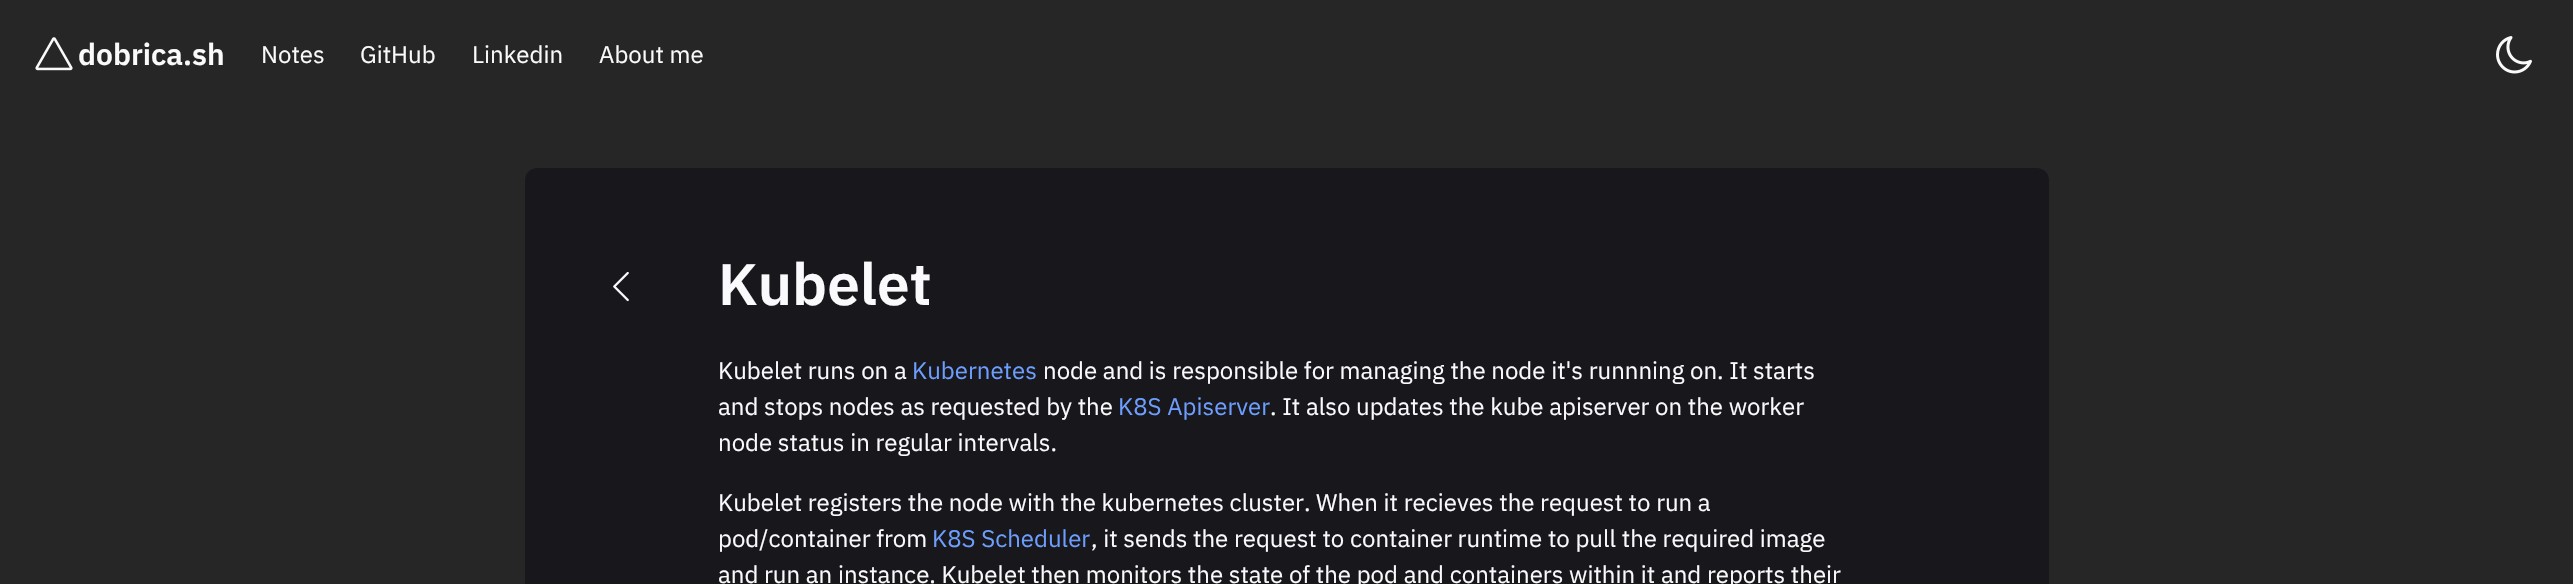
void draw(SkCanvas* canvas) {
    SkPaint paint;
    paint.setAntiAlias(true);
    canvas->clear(0xFF262626);
    canvas->drawImageRect(SkImages::DeferredFromEncodedData(SkData::MakeFromFileName("img1.png")), SkRect::MakeXYWH(35, 37, 38, 34), SkSamplingOptions());
    SkFont font1(fontMgr->matchFamilyStyle("IBM Plex Sans", SkFontStyle(600, SkFontStyle::kNormal_Width, SkFontStyle::kUpright_Slant)), 30);
    font1.setSubpixel(true);
    paint.setColor(0xFFFAFAFC);
    canvas->drawString("dobrica.sh", 78, 65, font1, paint);
    SkFont font2(fontMgr->matchFamilyStyle("IBM Plex Sans", SkFontStyle::Normal()), 24);
    font2.setSubpixel(true);
    canvas->drawString("Notes", 261, 63, font2, paint);
    canvas->drawString("GitHub", 360, 63, font2, paint);
    canvas->drawString("Linkedin", 472, 63, font2, paint);
    canvas->drawString("About me", 599, 63, font2, paint);
    canvas->drawImageRect(SkImages::DeferredFromEncodedData(SkData::MakeFromFileName("img2.png")), SkRect::MakeXYWH(2496, 36, 36, 38), SkSamplingOptions());
    paint.setColor(0xFF18181C);
    canvas->drawRoundRect(SkRect::MakeXYWH(525, 168, 1524, 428), 12, 12, paint);
    canvas->drawImageRect(SkImages::DeferredFromEncodedData(SkData::MakeFromFileName("img3.png")), SkRect::MakeXYWH(613, 272, 16, 30), SkSamplingOptions());
    SkFont font3(fontMgr->matchFamilyStyle("IBM Plex Sans", SkFontStyle(600, SkFontStyle::kNormal_Width, SkFontStyle::kUpright_Slant)), 58.5f);
    font3.setSubpixel(true);
    paint.setColor(0xFFFAFAFC);
    canvas->drawString("Kubelet", 718, 305, font3, paint);
    canvas->drawString("Kubelet runs on a", 718, 379, font2, paint);
    paint.setColor(0xFF6D9EFF);
    canvas->drawString("Kubernetes", 912, 379, font2, paint);
    paint.setColor(0xFFFAFAFC);
    canvas->drawString("node and is responsible for managing the node it's runnning on. It starts", 1043, 379, font2, paint);
    canvas->drawString("and stops nodes as requested by the", 718, 415, font2, paint);
    paint.setColor(0xFF6D9EFF);
    canvas->drawString("K8S Apiserver", 1118, 415, font2, paint);
    paint.setColor(0xFFFAFAFC);
    canvas->drawString(". It also updates the kube apiserver on the worker", 1270, 415, font2, paint);
    canvas->drawString("node status in regular intervals.", 718, 451, font2, paint);
    canvas->drawString("Kubelet registers the node with the kubernetes cluster. When it recieves the request to run a", 718, 511, font2, paint);
    canvas->drawString("pod/container from", 718, 547, font2, paint);
    paint.setColor(0xFF6D9EFF);
    canvas->drawString("K8S Scheduler", 932, 547, font2, paint);
    paint.setColor(0xFFFAFAFC);
    canvas->drawString(", it sends the request to container runtime to pull the required image", 1091, 547, font2, paint);
    canvas->drawString("and run an instance. Kubelet then monitors the state of the pod and containers within it and reports their", 718, 583, font2, paint);
}
